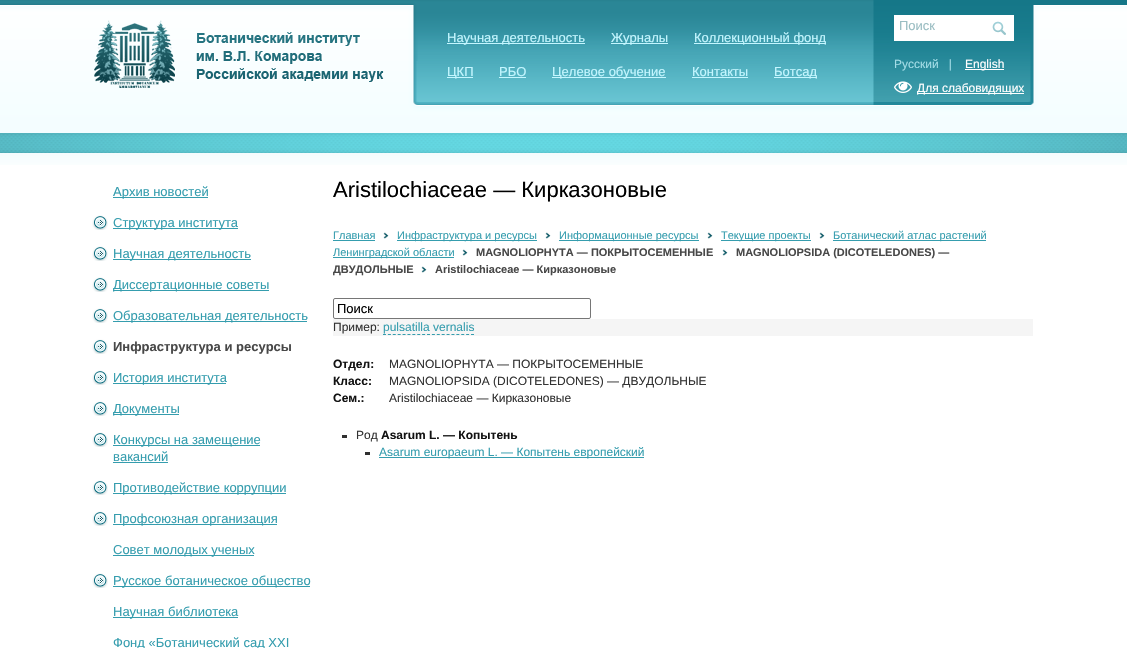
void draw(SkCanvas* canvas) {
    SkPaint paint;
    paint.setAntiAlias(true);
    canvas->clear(0xFFFFFFFF);
    canvas->drawImageRect(SkImages::DeferredFromEncodedData(SkData::MakeFromFileName("img1.png")), SkRect::MakeXYWH(0, 0, 1127, 165), SkSamplingOptions());
    canvas->drawImageRect(SkImages::DeferredFromEncodedData(SkData::MakeFromFileName("img2.png")), SkRect::MakeXYWH(94, 20, 290, 68), SkSamplingOptions());
    paint.setColor(0xFFC4F6FF);
    canvas->drawRect(SkRect::MakeXYWH(447, 43, 138, 1), paint);
    SkFont font1(fontMgr->matchFamilyStyle("Liberation Sans", SkFontStyle::Normal()), 13);
    font1.setSubpixel(true);
    canvas->drawString("Научная деятельность", 447, 42, font1, paint);
    canvas->drawRect(SkRect::MakeXYWH(611, 43, 57, 1), paint);
    canvas->drawString("Журналы", 611, 42, font1, paint);
    canvas->drawRect(SkRect::MakeXYWH(694, 43, 132, 1), paint);
    canvas->drawString("Коллекционный фонд", 694, 42, font1, paint);
    canvas->drawRect(SkRect::MakeXYWH(447, 77, 26, 1), paint);
    canvas->drawString("ЦКП", 447, 76, font1, paint);
    canvas->drawString("РБО", 499, 76, font1, paint);
    canvas->drawRect(SkRect::MakeXYWH(499, 77, 27, 1), paint);
    canvas->drawRect(SkRect::MakeXYWH(552, 77, 114, 1), paint);
    canvas->drawString("Целевое обучение", 552, 76, font1, paint);
    canvas->drawString("Контакты", 692, 76, font1, paint);
    canvas->drawRect(SkRect::MakeXYWH(692, 77, 56, 1), paint);
    canvas->drawRect(SkRect::MakeXYWH(774, 77, 43, 1), paint);
    canvas->drawString("Ботсад", 774, 76, font1, paint);
    paint.setColor(0xFFFFFFFF);
    canvas->drawRect(SkRect::MakeXYWH(894, 15, 120, 26), paint);
    paint.setColor(0xFF9ABDC2);
    canvas->drawString("Поиск", 899, 30, font1, paint);
    canvas->drawImageRect(SkImages::DeferredFromEncodedData(SkData::MakeFromFileName("img3.png")), SkRect::MakeXYWH(992, 21, 14, 14), SkSamplingOptions());
    SkFont font2(fontMgr->matchFamilyStyle("Liberation Sans", SkFontStyle::Normal()), 12);
    font2.setSubpixel(true);
    paint.setColor(0xFFA3DCE6);
    canvas->drawString("Русский   |", 894, 68, font2, paint);
    paint.setColor(0xFFFFFFFF);
    canvas->drawRect(SkRect::MakeXYWH(965, 69, 39, 1), paint);
    canvas->drawString("English", 965, 68, font2, paint);
    canvas->drawImageRect(SkImages::DeferredFromEncodedData(SkData::MakeFromFileName("img4.png")), SkRect::MakeXYWH(894, 81, 18, 12), SkSamplingOptions());
    canvas->drawRect(SkRect::MakeXYWH(917, 93, 107, 1), paint);
    canvas->drawString("Для слабовидящих", 917, 92, font2, paint);
    paint.setColor(0xFF359DAE);
    canvas->drawRect(SkRect::MakeXYWH(113, 197, 95, 1), paint);
    canvas->drawString("Архив новостей", 113, 196, font1, paint);
    canvas->drawImageRect(SkImages::DeferredFromEncodedData(SkData::MakeFromFileName("img5.png")), SkRect::MakeXYWH(92, 215, 16, 15), SkSamplingOptions());
    canvas->drawRect(SkRect::MakeXYWH(113, 228, 125, 1), paint);
    canvas->drawString("Структура института", 113, 227, font1, paint);
    canvas->drawImageRect(SkImages::DeferredFromEncodedData(SkData::MakeFromFileName("img5.png")), SkRect::MakeXYWH(92, 246, 16, 15), SkSamplingOptions());
    canvas->drawRect(SkRect::MakeXYWH(113, 259, 138, 1), paint);
    canvas->drawString("Научная деятельность", 113, 258, font1, paint);
    canvas->drawImageRect(SkImages::DeferredFromEncodedData(SkData::MakeFromFileName("img5.png")), SkRect::MakeXYWH(92, 277, 16, 15), SkSamplingOptions());
    canvas->drawRect(SkRect::MakeXYWH(113, 290, 156, 1), paint);
    canvas->drawString("Диссертационные советы", 113, 289, font1, paint);
    canvas->drawImageRect(SkImages::DeferredFromEncodedData(SkData::MakeFromFileName("img5.png")), SkRect::MakeXYWH(92, 308, 16, 15), SkSamplingOptions());
    canvas->drawRect(SkRect::MakeXYWH(113, 321, 194, 1), paint);
    canvas->drawString("Образовательная деятельность", 113, 320, font1, paint);
    canvas->drawImageRect(SkImages::DeferredFromEncodedData(SkData::MakeFromFileName("img5.png")), SkRect::MakeXYWH(92, 339, 16, 15), SkSamplingOptions());
    SkFont font3(fontMgr->matchFamilyStyle("Liberation Sans", SkFontStyle::Bold()), 13);
    font3.setSubpixel(true);
    paint.setColor(0xFF484848);
    canvas->drawString("Инфраструктура и ресурсы", 113, 351, font3, paint);
    canvas->drawImageRect(SkImages::DeferredFromEncodedData(SkData::MakeFromFileName("img5.png")), SkRect::MakeXYWH(92, 370, 16, 15), SkSamplingOptions());
    paint.setColor(0xFF359DAE);
    canvas->drawRect(SkRect::MakeXYWH(113, 383, 113, 1), paint);
    canvas->drawString("История института", 113, 382, font1, paint);
    canvas->drawImageRect(SkImages::DeferredFromEncodedData(SkData::MakeFromFileName("img5.png")), SkRect::MakeXYWH(92, 401, 16, 15), SkSamplingOptions());
    canvas->drawRect(SkRect::MakeXYWH(113, 414, 66, 1), paint);
    canvas->drawString("Документы", 113, 413, font1, paint);
    canvas->drawImageRect(SkImages::DeferredFromEncodedData(SkData::MakeFromFileName("img5.png")), SkRect::MakeXYWH(92, 432, 16, 15), SkSamplingOptions());
    canvas->drawRect(SkRect::MakeXYWH(113, 445, 147, 1), paint);
    canvas->drawString("Конкурсы на замещение", 113, 444, font1, paint);
    canvas->drawString("вакансий", 113, 461, font1, paint);
    canvas->drawRect(SkRect::MakeXYWH(113, 462, 55, 1), paint);
    canvas->drawImageRect(SkImages::DeferredFromEncodedData(SkData::MakeFromFileName("img5.png")), SkRect::MakeXYWH(92, 480, 16, 15), SkSamplingOptions());
    canvas->drawRect(SkRect::MakeXYWH(113, 493, 173, 1), paint);
    canvas->drawString("Противодействие коррупции", 113, 492, font1, paint);
    canvas->drawImageRect(SkImages::DeferredFromEncodedData(SkData::MakeFromFileName("img5.png")), SkRect::MakeXYWH(92, 511, 16, 15), SkSamplingOptions());
    canvas->drawRect(SkRect::MakeXYWH(113, 524, 164, 1), paint);
    canvas->drawString("Профсоюзная организация", 113, 523, font1, paint);
    canvas->drawRect(SkRect::MakeXYWH(113, 555, 141, 1), paint);
    canvas->drawString("Совет молодых ученых", 113, 554, font1, paint);
    canvas->drawImageRect(SkImages::DeferredFromEncodedData(SkData::MakeFromFileName("img5.png")), SkRect::MakeXYWH(92, 573, 16, 15), SkSamplingOptions());
    canvas->drawRect(SkRect::MakeXYWH(113, 586, 197, 1), paint);
    canvas->drawString("Русское ботаническое общество", 113, 585, font1, paint);
    canvas->drawRect(SkRect::MakeXYWH(113, 617, 125, 1), paint);
    canvas->drawString("Научная библиотека", 113, 616, font1, paint);
    canvas->drawString("Фонд «Ботанический сад XXI", 113, 647, font1, paint);
    SkFont font4(fontMgr->matchFamilyStyle("Liberation Sans", SkFontStyle::Normal()), 22);
    font4.setSubpixel(true);
    paint.setColor(0xFF000000);
    canvas->drawString("Aristilochiaceae — Кирказоновые", 333, 197, font4, paint);
    SkFont font5(fontMgr->matchFamilyStyle("Liberation Sans", SkFontStyle::Normal()), 11);
    font5.setSubpixel(true);
    paint.setColor(0xFF359DAE);
    canvas->drawString("Главная", 333, 239, font5, paint);
    canvas->drawRect(SkRect::MakeXYWH(333, 240, 42, 1), paint);
    canvas->drawImageRect(SkImages::DeferredFromEncodedData(SkData::MakeFromFileName("img6.png")), SkRect::MakeXYWH(383, 232, 6, 7), SkSamplingOptions());
    canvas->drawRect(SkRect::MakeXYWH(397, 240, 140, 1), paint);
    canvas->drawString("Инфраструктура и ресурсы", 397, 239, font5, paint);
    canvas->drawImageRect(SkImages::DeferredFromEncodedData(SkData::MakeFromFileName("img6.png")), SkRect::MakeXYWH(545, 232, 6, 7), SkSamplingOptions());
    canvas->drawRect(SkRect::MakeXYWH(559, 240, 140, 1), paint);
    canvas->drawString("Информационные ресурсы", 559, 239, font5, paint);
    canvas->drawImageRect(SkImages::DeferredFromEncodedData(SkData::MakeFromFileName("img6.png")), SkRect::MakeXYWH(707, 232, 6, 7), SkSamplingOptions());
    canvas->drawRect(SkRect::MakeXYWH(721, 240, 90, 1), paint);
    canvas->drawString("Текущие проекты", 721, 239, font5, paint);
    canvas->drawImageRect(SkImages::DeferredFromEncodedData(SkData::MakeFromFileName("img6.png")), SkRect::MakeXYWH(819, 232, 6, 7), SkSamplingOptions());
    canvas->drawRect(SkRect::MakeXYWH(833, 240, 153, 1), paint);
    canvas->drawString("Ботанический атлас растений", 833, 239, font5, paint);
    canvas->drawRect(SkRect::MakeXYWH(333, 257, 121, 1), paint);
    canvas->drawString("Ленинградской области", 333, 256, font5, paint);
    canvas->drawImageRect(SkImages::DeferredFromEncodedData(SkData::MakeFromFileName("img6.png")), SkRect::MakeXYWH(462, 249, 6, 7), SkSamplingOptions());
    SkFont font6(fontMgr->matchFamilyStyle("Liberation Sans", SkFontStyle::Bold()), 11);
    font6.setSubpixel(true);
    paint.setColor(0xFF484848);
    canvas->drawString("MAGNOLIOPHYTA — ПОКРЫТОСЕМЕННЫЕ", 476, 256, font6, paint);
    canvas->drawImageRect(SkImages::DeferredFromEncodedData(SkData::MakeFromFileName("img6.png")), SkRect::MakeXYWH(722, 249, 6, 7), SkSamplingOptions());
    canvas->drawString("MAGNOLIOPSIDA (DICOTELEDONES) —", 736, 256, font6, paint);
    canvas->drawString("ДВУДОЛЬНЫЕ", 333, 273, font6, paint);
    canvas->drawImageRect(SkImages::DeferredFromEncodedData(SkData::MakeFromFileName("img6.png")), SkRect::MakeXYWH(421, 266, 6, 7), SkSamplingOptions());
    canvas->drawString("Aristilochiaceae — Кирказоновые", 435, 273, font6, paint);
    paint.setStyle(SkPaint::kStroke_Style);
    paint.setStrokeWidth(1);
    paint.setColor(0xFF767676);
    canvas->drawRoundRect(SkRect::MakeXYWH(333.5f, 298.5f, 257, 20), 1.5f, 1.5f, paint);
    paint.setStyle(SkPaint::kFill_Style);
    paint.setColor(0xFF000000);
    canvas->drawString("Поиск", 337, 313, font1, paint);
    paint.setColor(0xFFF5F5F5);
    canvas->drawRect(SkRect::MakeXYWH(333, 319, 700, 17), paint);
    paint.setColor(0xFF333333);
    canvas->drawString("Пример:", 333, 331, font2, paint);
    paint.setColor(0xFF359DAE);
    canvas->drawString("pulsatilla vernalis", 383, 331, font2, paint);
    paint.setStyle(SkPaint::kStroke_Style);
    paint.setPathEffect(SkDashPathEffect::Make({{3, 1.89f}}, 0));
    canvas->drawPath(SkPathBuilder().moveTo(383, 334.5f).lineTo(474, 334.5f).detach(), paint);
    paint.setPathEffect(nullptr);
    SkFont font7(fontMgr->matchFamilyStyle("Liberation Sans", SkFontStyle::Bold()), 12);
    font7.setSubpixel(true);
    paint.setStyle(SkPaint::kFill_Style);
    paint.setColor(0xFF121212);
    canvas->drawString("Отдел:", 333, 368, font7, paint);
    paint.setColor(0xFF333333);
    canvas->drawString("MAGNOLIOPHYTA — ПОКРЫТОСЕМЕННЫЕ", 389, 368, font2, paint);
    paint.setColor(0xFF121212);
    canvas->drawString("Класс:", 333, 385, font7, paint);
    paint.setColor(0xFF333333);
    canvas->drawString("MAGNOLIOPSIDA (DICOTELEDONES) — ДВУДОЛЬНЫЕ", 389, 385, font2, paint);
    paint.setColor(0xFF121212);
    canvas->drawString("Сем.:", 333, 402, font7, paint);
    paint.setColor(0xFF333333);
    canvas->drawString("Aristilochiaceae — Кирказоновые", 389, 402, font2, paint);
    paint.setColor(0xFF303030);
    canvas->drawRect(SkRect::MakeXYWH(342, 435, 5, 3), paint);
    paint.setColor(0xFF333333);
    canvas->drawString("Род", 356, 439, font2, paint);
    paint.setColor(0xFF121212);
    canvas->drawString("Asarum L. — Копытень", 381, 439, font7, paint);
    paint.setColor(0xFF303030);
    canvas->drawRect(SkRect::MakeXYWH(365, 452, 5, 3), paint);
    paint.setColor(0xFF359DAE);
    canvas->drawRect(SkRect::MakeXYWH(379, 457, 265, 1), paint);
    canvas->drawString("Asarum europaeum L. — Копытень европейский", 379, 456, font2, paint);
}
